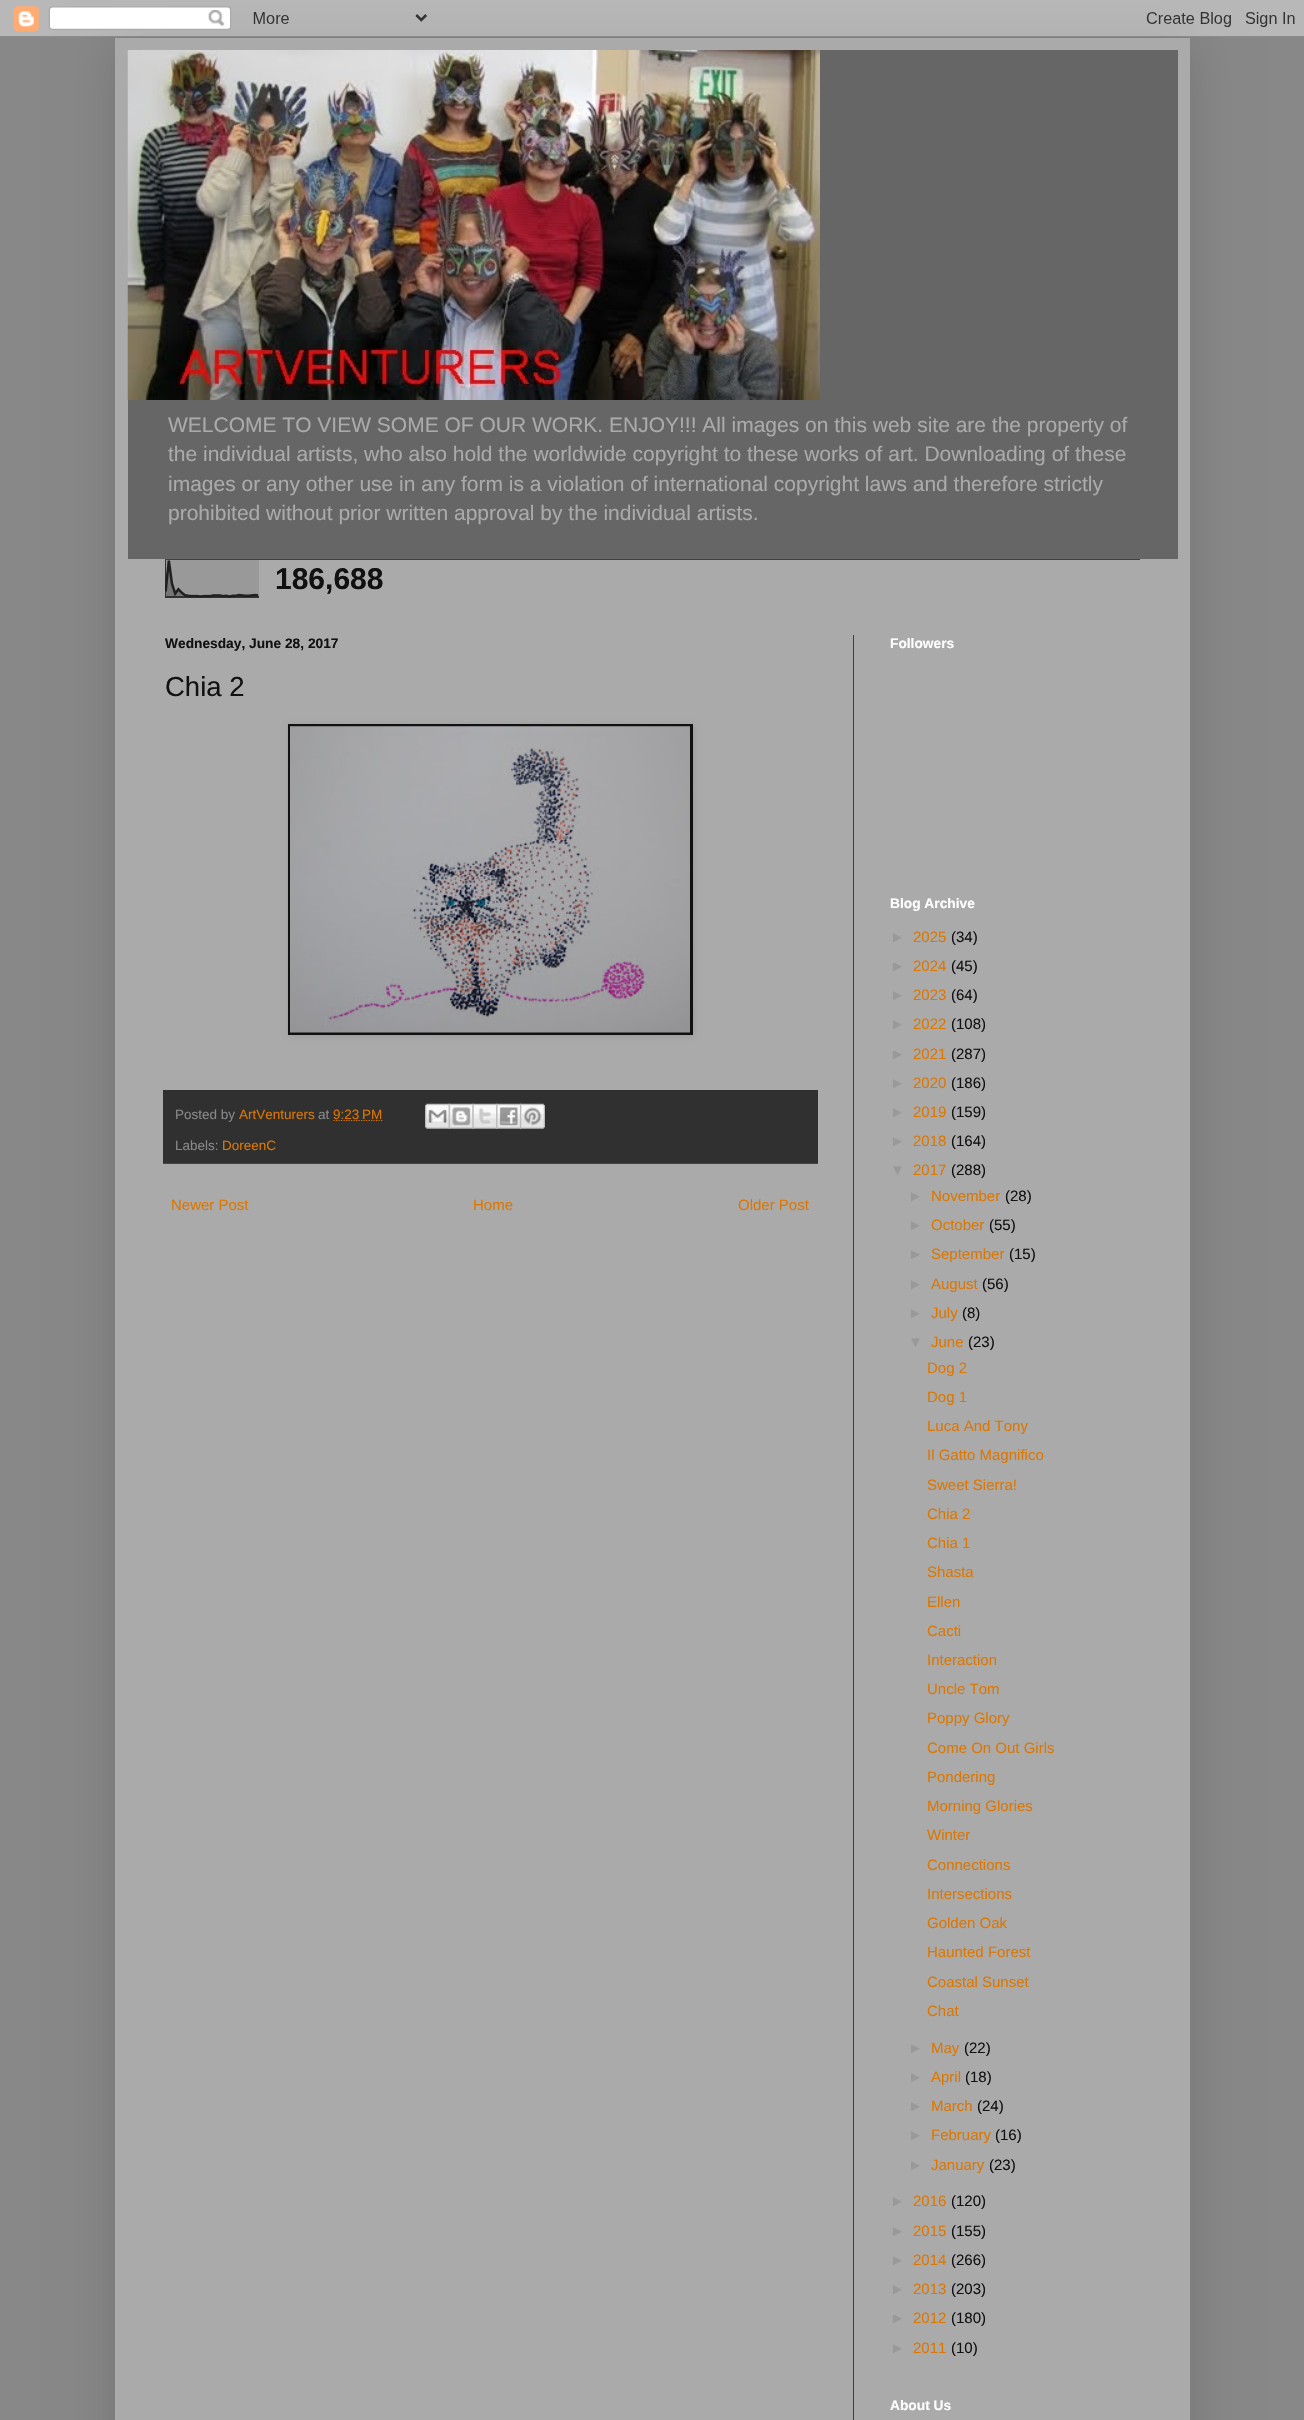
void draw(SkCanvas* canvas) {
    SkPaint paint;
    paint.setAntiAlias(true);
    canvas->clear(0xFF888888);
    paint.setColor(0x26000000);
    paint.setMaskFilter(SkMaskFilter::MakeBlur(kNormal_SkBlurStyle, 25));
    canvas->drawRect(SkRect::MakeXYWH(115, 38, 1075, 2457), paint);
    paint.setMaskFilter(nullptr);
    canvas->drawImageRect(SkImages::DeferredFromEncodedData(SkData::MakeFromFileName("img1.png")), SkRect::MakeXYWH(0, 0, 1304, 37), SkSamplingOptions());
    paint.setColor(0xFFAAAAAA);
    canvas->drawRect(SkRect::MakeXYWH(115, 38, 1075, 2382), paint);
    paint.setColor(0xFF666666);
    canvas->drawRect(SkRect::MakeXYWH(128, 50, 1050, 509), paint);
    canvas->drawImageRect(SkImages::DeferredFromEncodedData(SkData::MakeFromFileName("img2.png")), SkRect::MakeXYWH(127, 50, 693, 350), SkSamplingOptions());
    SkFont font1(fontMgr->matchFamilyStyle("Liberation Sans", SkFontStyle::Normal()), 21);
    font1.setSubpixel(true);
    paint.setColor(0xFFAAAAAA);
    canvas->drawString("WELCOME TO VIEW SOME OF OUR WORK. ENJOY!!! All images on this web site are the property of", 168, 432, font1, paint);
    canvas->drawString("the individual artists, who also hold the worldwide copyright to these works of art. Downloading of these", 168, 461, font1, paint);
    canvas->drawString("images or any other use in any form is a violation of international copyright laws and therefore strictly", 168, 491, font1, paint);
    canvas->drawString("prohibited without prior written approval by the individual artists.", 168, 520, font1, paint);
    paint.setColor(0xFF404040);
    canvas->drawRect(SkRect::MakeXYWH(165, 559, 975, 1), paint);
    canvas->drawImageRect(SkImages::DeferredFromEncodedData(SkData::MakeFromFileName("img3.png")), SkRect::MakeXYWH(165, 560, 94, 38), SkSamplingOptions());
    SkFont font2(fontMgr->matchFamilyStyle("Liberation Sans", SkFontStyle::Bold()), 30);
    font2.setSubpixel(true);
    paint.setColor(0xFF111111);
    canvas->drawString("186,688", 275, 589, font2, paint);
    paint.setColor(0xFF404040);
    canvas->drawRect(SkRect::MakeXYWH(853, 635, 1, 1785), paint);
    SkFont font3(fontMgr->matchFamilyStyle("Liberation Sans", SkFontStyle::Bold()), 13.75f);
    font3.setSubpixel(true);
    paint.setColor(0xFF111111);
    canvas->drawString("Wednesday, June 28, 2017", 165, 648, font3, paint);
    SkFont font4(fontMgr->matchFamilyStyle("Liberation Sans", SkFontStyle::Normal()), 27.5f);
    font4.setSubpixel(true);
    canvas->drawString("Chia 2", 165, 696, font4, paint);
    paint.setColor(0x1A000000);
    paint.setMaskFilter(SkMaskFilter::MakeBlur(kNormal_SkBlurStyle, 3));
    canvas->drawRect(SkRect::MakeXYWH(289, 725, 405, 311), paint);
    paint.setMaskFilter(nullptr);
    paint.setColor(0xFF111111);
    canvas->drawRect(SkRect::MakeXYWH(288, 724, 405, 311), paint);
    canvas->drawImageRect(SkImages::DeferredFromEncodedData(SkData::MakeFromFileName("img4.png")), SkRect::MakeXYWH(290, 726, 400, 307), SkSamplingOptions());
    paint.setColor(0xFF303030);
    canvas->drawRect(SkRect::MakeXYWH(163, 1090, 655, 73), paint);
    paint.setColor(0xFF444444);
    canvas->drawRect(SkRect::MakeXYWH(163, 1163, 655, 1), paint);
    SkFont font5(fontMgr->matchFamilyStyle("Liberation Sans", SkFontStyle::Normal()), 13.5f);
    font5.setSubpixel(true);
    paint.setColor(0xFF888888);
    canvas->drawString("Posted by", 175, 1119, font5, paint);
    paint.setColor(0xFFDD7700);
    canvas->drawString("ArtVenturers", 239, 1119, font5, paint);
    paint.setColor(0xFF888888);
    canvas->drawString("at", 318, 1119, font5, paint);
    paint.setStyle(SkPaint::kStroke_Style);
    paint.setStrokeWidth(1.2f);
    paint.setColor(0xFFDD7700);
    paint.setPathEffect(SkDashPathEffect::Make({{1.25f, 1.25f}}, 0));
    canvas->drawPath(SkPathBuilder().moveTo(333.5f, 1120.5f).lineTo(382.5f, 1120.5f).detach(), paint);
    paint.setPathEffect(nullptr);
    paint.setStyle(SkPaint::kFill_Style);
    canvas->drawString("9:23 PM", 333, 1119, font5, paint);
    canvas->drawImageRect(SkImages::DeferredFromEncodedData(SkData::MakeFromFileName("img5.png")), SkRect::MakeXYWH(425, 1103, 25, 26), SkSamplingOptions());
    canvas->drawImageRect(SkImages::DeferredFromEncodedData(SkData::MakeFromFileName("img6.png")), SkRect::MakeXYWH(448, 1103, 26, 26), SkSamplingOptions());
    canvas->drawImageRect(SkImages::DeferredFromEncodedData(SkData::MakeFromFileName("img7.png")), SkRect::MakeXYWH(472, 1103, 26, 26), SkSamplingOptions());
    canvas->drawImageRect(SkImages::DeferredFromEncodedData(SkData::MakeFromFileName("img8.png")), SkRect::MakeXYWH(496, 1103, 26, 26), SkSamplingOptions());
    canvas->drawImageRect(SkImages::DeferredFromEncodedData(SkData::MakeFromFileName("img9.png")), SkRect::MakeXYWH(520, 1103, 25, 26), SkSamplingOptions());
    paint.setColor(0xFF888888);
    canvas->drawString("Labels:", 175, 1150, font5, paint);
    paint.setColor(0xFFDD7700);
    canvas->drawString("DoreenC", 222, 1150, font5, paint);
    SkFont font6(fontMgr->matchFamilyStyle("Liberation Sans", SkFontStyle::Normal()), 15);
    font6.setSubpixel(true);
    canvas->drawString("Newer Post", 171, 1210, font6, paint);
    canvas->drawString("Home", 473, 1210, font6, paint);
    canvas->drawString("Older Post", 738, 1210, font6, paint);
    paint.setColor(0xFFFFFFFF);
    canvas->drawString("Followers", 890, 648, font3, paint);
    canvas->drawString("Blog Archive", 890, 908, font3, paint);
    paint.setColor(0xFF999999);
    canvas->drawString("►", 890, 942, font6, paint);
    paint.setColor(0xFFDD7700);
    canvas->drawString("2025", 913, 942, font6, paint);
    paint.setColor(0xFF111111);
    canvas->drawString("(34)", 951, 942, font6, paint);
    paint.setColor(0xFF999999);
    canvas->drawString("►", 890, 971, font6, paint);
    paint.setColor(0xFFDD7700);
    canvas->drawString("2024", 913, 971, font6, paint);
    paint.setColor(0xFF111111);
    canvas->drawString("(45)", 951, 971, font6, paint);
    paint.setColor(0xFF999999);
    canvas->drawString("►", 890, 1000, font6, paint);
    paint.setColor(0xFFDD7700);
    canvas->drawString("2023", 913, 1000, font6, paint);
    paint.setColor(0xFF111111);
    canvas->drawString("(64)", 951, 1000, font6, paint);
    paint.setColor(0xFF999999);
    canvas->drawString("►", 890, 1029, font6, paint);
    paint.setColor(0xFFDD7700);
    canvas->drawString("2022", 913, 1029, font6, paint);
    paint.setColor(0xFF111111);
    canvas->drawString("(108)", 951, 1029, font6, paint);
    paint.setColor(0xFF999999);
    canvas->drawString("►", 890, 1059, font6, paint);
    paint.setColor(0xFFDD7700);
    canvas->drawString("2021", 913, 1059, font6, paint);
    paint.setColor(0xFF111111);
    canvas->drawString("(287)", 951, 1059, font6, paint);
    paint.setColor(0xFF999999);
    canvas->drawString("►", 890, 1088, font6, paint);
    paint.setColor(0xFFDD7700);
    canvas->drawString("2020", 913, 1088, font6, paint);
    paint.setColor(0xFF111111);
    canvas->drawString("(186)", 951, 1088, font6, paint);
    paint.setColor(0xFF999999);
    canvas->drawString("►", 890, 1117, font6, paint);
    paint.setColor(0xFFDD7700);
    canvas->drawString("2019", 913, 1117, font6, paint);
    paint.setColor(0xFF111111);
    canvas->drawString("(159)", 951, 1117, font6, paint);
    paint.setColor(0xFF999999);
    canvas->drawString("►", 890, 1146, font6, paint);
    paint.setColor(0xFFDD7700);
    canvas->drawString("2018", 913, 1146, font6, paint);
    paint.setColor(0xFF111111);
    canvas->drawString("(164)", 951, 1146, font6, paint);
    paint.setColor(0xFF999999);
    canvas->drawString("▼", 890, 1175, font6, paint);
    paint.setColor(0xFFDD7700);
    canvas->drawString("2017", 913, 1175, font6, paint);
    paint.setColor(0xFF111111);
    canvas->drawString("(288)", 951, 1175, font6, paint);
    paint.setColor(0xFF999999);
    canvas->drawString("►", 908, 1201, font6, paint);
    paint.setColor(0xFFDD7700);
    canvas->drawString("November", 931, 1201, font6, paint);
    paint.setColor(0xFF111111);
    canvas->drawString("(28)", 1005, 1201, font6, paint);
    paint.setColor(0xFF999999);
    canvas->drawString("►", 908, 1230, font6, paint);
    paint.setColor(0xFFDD7700);
    canvas->drawString("October", 931, 1230, font6, paint);
    paint.setColor(0xFF111111);
    canvas->drawString("(55)", 989, 1230, font6, paint);
    paint.setColor(0xFF999999);
    canvas->drawString("►", 908, 1259, font6, paint);
    paint.setColor(0xFFDD7700);
    canvas->drawString("September", 931, 1259, font6, paint);
    paint.setColor(0xFF111111);
    canvas->drawString("(15)", 1009, 1259, font6, paint);
    paint.setColor(0xFF999999);
    canvas->drawString("►", 908, 1289, font6, paint);
    paint.setColor(0xFFDD7700);
    canvas->drawString("August", 931, 1289, font6, paint);
    paint.setColor(0xFF111111);
    canvas->drawString("(56)", 982, 1289, font6, paint);
    paint.setColor(0xFF999999);
    canvas->drawString("►", 908, 1318, font6, paint);
    paint.setColor(0xFFDD7700);
    canvas->drawString("July", 931, 1318, font6, paint);
    paint.setColor(0xFF111111);
    canvas->drawString("(8)", 962, 1318, font6, paint);
    paint.setColor(0xFF999999);
    canvas->drawString("▼", 908, 1347, font6, paint);
    paint.setColor(0xFFDD7700);
    canvas->drawString("June", 931, 1347, font6, paint);
    paint.setColor(0xFF111111);
    canvas->drawString("(23)", 968, 1347, font6, paint);
    paint.setColor(0xFFDD7700);
    canvas->drawString("Dog 2", 927, 1373, font6, paint);
    canvas->drawString("Dog 1", 927, 1402, font6, paint);
    canvas->drawString("Luca And Tony", 927, 1431, font6, paint);
    canvas->drawString("Il Gatto Magnifico", 927, 1460, font6, paint);
    canvas->drawString("Sweet Sierra!", 927, 1490, font6, paint);
    canvas->drawString("Chia 2", 927, 1519, font6, paint);
    canvas->drawString("Chia 1", 927, 1548, font6, paint);
    canvas->drawString("Shasta", 927, 1577, font6, paint);
    canvas->drawString("Ellen", 927, 1607, font6, paint);
    canvas->drawString("Cacti", 927, 1636, font6, paint);
    canvas->drawString("Interaction", 927, 1665, font6, paint);
    canvas->drawString("Uncle Tom", 927, 1694, font6, paint);
    canvas->drawString("Poppy Glory", 927, 1723, font6, paint);
    canvas->drawString("Come On Out Girls", 927, 1753, font6, paint);
    canvas->drawString("Pondering", 927, 1782, font6, paint);
    canvas->drawString("Morning Glories", 927, 1811, font6, paint);
    canvas->drawString("Winter", 927, 1840, font6, paint);
    canvas->drawString("Connections", 927, 1870, font6, paint);
    canvas->drawString("Intersections", 927, 1899, font6, paint);
    canvas->drawString("Golden Oak", 927, 1928, font6, paint);
    canvas->drawString("Haunted Forest", 927, 1957, font6, paint);
    canvas->drawString("Coastal Sunset", 927, 1987, font6, paint);
    canvas->drawString("Chat", 927, 2016, font6, paint);
    paint.setColor(0xFF999999);
    canvas->drawString("►", 908, 2053, font6, paint);
    paint.setColor(0xFFDD7700);
    canvas->drawString("May", 931, 2053, font6, paint);
    paint.setColor(0xFF111111);
    canvas->drawString("(22)", 964, 2053, font6, paint);
    paint.setColor(0xFF999999);
    canvas->drawString("►", 908, 2082, font6, paint);
    paint.setColor(0xFFDD7700);
    canvas->drawString("April", 931, 2082, font6, paint);
    paint.setColor(0xFF111111);
    canvas->drawString("(18)", 965, 2082, font6, paint);
    paint.setColor(0xFF999999);
    canvas->drawString("►", 908, 2111, font6, paint);
    paint.setColor(0xFFDD7700);
    canvas->drawString("March", 931, 2111, font6, paint);
    paint.setColor(0xFF111111);
    canvas->drawString("(24)", 977, 2111, font6, paint);
    paint.setColor(0xFF999999);
    canvas->drawString("►", 908, 2140, font6, paint);
    paint.setColor(0xFFDD7700);
    canvas->drawString("February", 931, 2140, font6, paint);
    paint.setColor(0xFF111111);
    canvas->drawString("(16)", 995, 2140, font6, paint);
    paint.setColor(0xFF999999);
    canvas->drawString("►", 908, 2170, font6, paint);
    paint.setColor(0xFFDD7700);
    canvas->drawString("January", 931, 2170, font6, paint);
    paint.setColor(0xFF111111);
    canvas->drawString("(23)", 989, 2170, font6, paint);
    paint.setColor(0xFF999999);
    canvas->drawString("►", 890, 2206, font6, paint);
    paint.setColor(0xFFDD7700);
    canvas->drawString("2016", 913, 2206, font6, paint);
    paint.setColor(0xFF111111);
    canvas->drawString("(120)", 951, 2206, font6, paint);
    paint.setColor(0xFF999999);
    canvas->drawString("►", 890, 2236, font6, paint);
    paint.setColor(0xFFDD7700);
    canvas->drawString("2015", 913, 2236, font6, paint);
    paint.setColor(0xFF111111);
    canvas->drawString("(155)", 951, 2236, font6, paint);
    paint.setColor(0xFF999999);
    canvas->drawString("►", 890, 2265, font6, paint);
    paint.setColor(0xFFDD7700);
    canvas->drawString("2014", 913, 2265, font6, paint);
    paint.setColor(0xFF111111);
    canvas->drawString("(266)", 951, 2265, font6, paint);
    paint.setColor(0xFF999999);
    canvas->drawString("►", 890, 2294, font6, paint);
    paint.setColor(0xFFDD7700);
    canvas->drawString("2013", 913, 2294, font6, paint);
    paint.setColor(0xFF111111);
    canvas->drawString("(203)", 951, 2294, font6, paint);
    paint.setColor(0xFF999999);
    canvas->drawString("►", 890, 2323, font6, paint);
    paint.setColor(0xFFDD7700);
    canvas->drawString("2012", 913, 2323, font6, paint);
    paint.setColor(0xFF111111);
    canvas->drawString("(180)", 951, 2323, font6, paint);
    paint.setColor(0xFF999999);
    canvas->drawString("►", 890, 2353, font6, paint);
    paint.setColor(0xFFDD7700);
    canvas->drawString("2011", 913, 2353, font6, paint);
    paint.setColor(0xFF111111);
    canvas->drawString("(10)", 951, 2353, font6, paint);
    paint.setColor(0xFFFFFFFF);
    canvas->drawString("About Us", 890, 2410, font3, paint);
}
